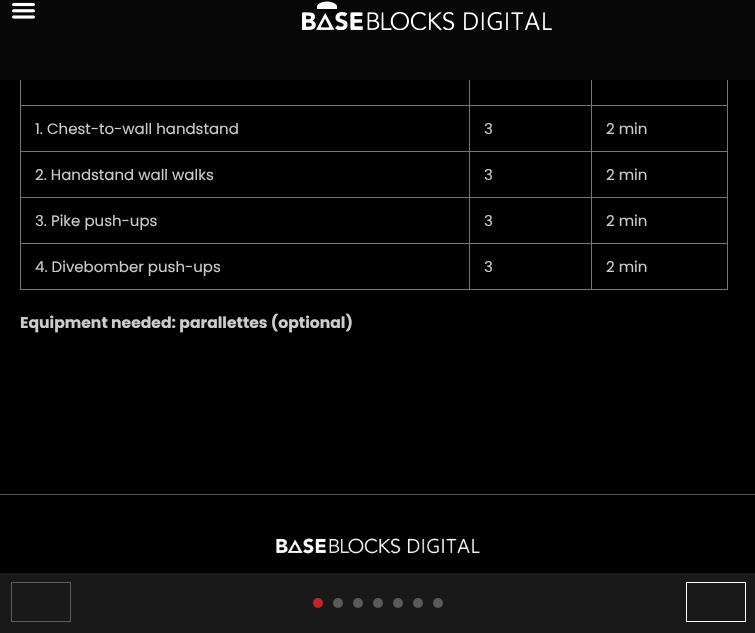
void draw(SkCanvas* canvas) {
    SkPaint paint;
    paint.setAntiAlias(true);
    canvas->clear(0xFF000000);
    paint.setColor(0xFF070707);
    canvas->drawRect(SkRect::MakeXYWH(0, 0, 755, 80), paint);
    canvas->drawImageRect(SkImages::DeferredFromEncodedData(SkData::MakeFromFileName("img1.png")), SkRect::MakeXYWH(12, 2, 23, 17), SkSamplingOptions());
    canvas->drawImageRect(SkImages::DeferredFromEncodedData(SkData::MakeFromFileName("img2.png")), SkRect::MakeXYWH(317, 1, 20, 8), SkSamplingOptions());
    canvas->drawImageRect(SkImages::DeferredFromEncodedData(SkData::MakeFromFileName("img3.png")), SkRect::MakeXYWH(302, 12, 250, 18), SkSamplingOptions());
    paint.setColor(0xFF767676);
    canvas->drawRect(SkRect::MakeXYWH(591, 105, 137, 1), paint);
    canvas->drawRect(SkRect::MakeXYWH(591, 151, 137, 1), paint);
    canvas->drawRect(SkRect::MakeXYWH(591, 197, 137, 1), paint);
    canvas->drawRect(SkRect::MakeXYWH(591, 243, 137, 1), paint);
    canvas->drawRect(SkRect::MakeXYWH(727, 243, 1, 47), paint);
    canvas->drawRect(SkRect::MakeXYWH(591, 289, 137, 1), paint);
    canvas->drawRect(SkRect::MakeXYWH(591, 243, 1, 47), paint);
    canvas->drawRect(SkRect::MakeXYWH(469, 243, 123, 1), paint);
    canvas->drawRect(SkRect::MakeXYWH(591, 197, 1, 47), paint);
    canvas->drawRect(SkRect::MakeXYWH(469, 197, 123, 1), paint);
    canvas->drawRect(SkRect::MakeXYWH(591, 151, 1, 47), paint);
    canvas->drawRect(SkRect::MakeXYWH(469, 151, 123, 1), paint);
    canvas->drawRect(SkRect::MakeXYWH(591, 105, 1, 47), paint);
    canvas->drawRect(SkRect::MakeXYWH(469, 105, 123, 1), paint);
    canvas->drawRect(SkRect::MakeXYWH(469, 289, 123, 1), paint);
    canvas->drawRect(SkRect::MakeXYWH(469, 243, 1, 47), paint);
    canvas->drawRect(SkRect::MakeXYWH(20, 243, 450, 1), paint);
    canvas->drawRect(SkRect::MakeXYWH(469, 197, 1, 47), paint);
    canvas->drawRect(SkRect::MakeXYWH(20, 197, 450, 1), paint);
    canvas->drawRect(SkRect::MakeXYWH(469, 151, 1, 47), paint);
    canvas->drawRect(SkRect::MakeXYWH(20, 151, 450, 1), paint);
    canvas->drawRect(SkRect::MakeXYWH(469, 105, 1, 47), paint);
    canvas->drawRect(SkRect::MakeXYWH(20, 105, 450, 1), paint);
    canvas->drawRect(SkRect::MakeXYWH(469, 80, 1, 26), paint);
    canvas->drawRect(SkRect::MakeXYWH(591, 80, 1, 26), paint);
    canvas->drawRect(SkRect::MakeXYWH(20, 289, 450, 1), paint);
    canvas->drawRect(SkRect::MakeXYWH(20, 243, 1, 47), paint);
    canvas->drawRect(SkRect::MakeXYWH(20, 197, 1, 47), paint);
    canvas->drawRect(SkRect::MakeXYWH(20, 151, 1, 47), paint);
    canvas->drawRect(SkRect::MakeXYWH(20, 80, 1, 72), paint);
    SkFont font1(fontMgr->matchFamilyStyle("Poppins", SkFontStyle::Normal()), 15);
    font1.setSubpixel(true);
    paint.setColor(0xFFCCCCCC);
    canvas->drawString("1. Chest-to-wall handstand", 35, 134, font1, paint);
    canvas->drawString("3", 484, 134, font1, paint);
    paint.setColor(0xFF767676);
    canvas->drawRect(SkRect::MakeXYWH(727, 197, 1, 47), paint);
    canvas->drawRect(SkRect::MakeXYWH(727, 151, 1, 47), paint);
    canvas->drawRect(SkRect::MakeXYWH(727, 80, 1, 72), paint);
    paint.setColor(0xFFCCCCCC);
    canvas->drawString("2 min", 606, 134, font1, paint);
    canvas->drawString("2. Handstand wall walks", 35, 180, font1, paint);
    canvas->drawString("3", 484, 180, font1, paint);
    canvas->drawString("2 min", 606, 180, font1, paint);
    canvas->drawString("3. Pike push-ups", 35, 226, font1, paint);
    canvas->drawString("3", 484, 226, font1, paint);
    canvas->drawString("2 min", 606, 226, font1, paint);
    canvas->drawString("4. Divebomber push-ups", 35, 272, font1, paint);
    canvas->drawString("3", 484, 272, font1, paint);
    canvas->drawString("2 min", 606, 272, font1, paint);
    SkFont font2(fontMgr->matchFamilyStyle("Poppins", SkFontStyle::Bold()), 15.6f);
    font2.setSubpixel(true);
    canvas->drawString("Equipment needed: parallettes (optional)", 20, 328, font2, paint);
    paint.setColor(0xFF191919);
    canvas->drawRect(SkRect::MakeXYWH(0, 573, 755, 60), paint);
    paint.setStyle(SkPaint::kStroke_Style);
    paint.setStrokeWidth(1);
    paint.setColor(0xFF5E5E5E);
    canvas->drawRect(SkRect::MakeXYWH(11.5f, 582.5f, 59, 39), paint);
    paint.setStyle(SkPaint::kFill_Style);
    paint.setColor(0xFFC52420);
    canvas->drawCircle(318, 603, 5, paint);
    paint.setColor(0xFF5A5A5A);
    canvas->drawCircle(338, 603, 5, paint);
    canvas->drawCircle(358, 603, 5, paint);
    canvas->drawCircle(378, 603, 5, paint);
    canvas->drawCircle(398, 603, 5, paint);
    canvas->drawCircle(418, 603, 5, paint);
    canvas->drawCircle(438, 603, 5, paint);
    paint.setStyle(SkPaint::kStroke_Style);
    paint.setColor(0xFFFFFFFF);
    canvas->drawRect(SkRect::MakeXYWH(686.5f, 582.5f, 59, 39), paint);
    paint.setStyle(SkPaint::kFill_Style);
    paint.setColor(0xFF555555);
    canvas->drawRect(SkRect::MakeXYWH(0, 494, 755, 1), paint);
    canvas->drawImageRect(SkImages::DeferredFromEncodedData(SkData::MakeFromFileName("img4.png")), SkRect::MakeXYWH(276, 538, 204, 16), SkSamplingOptions());
}
